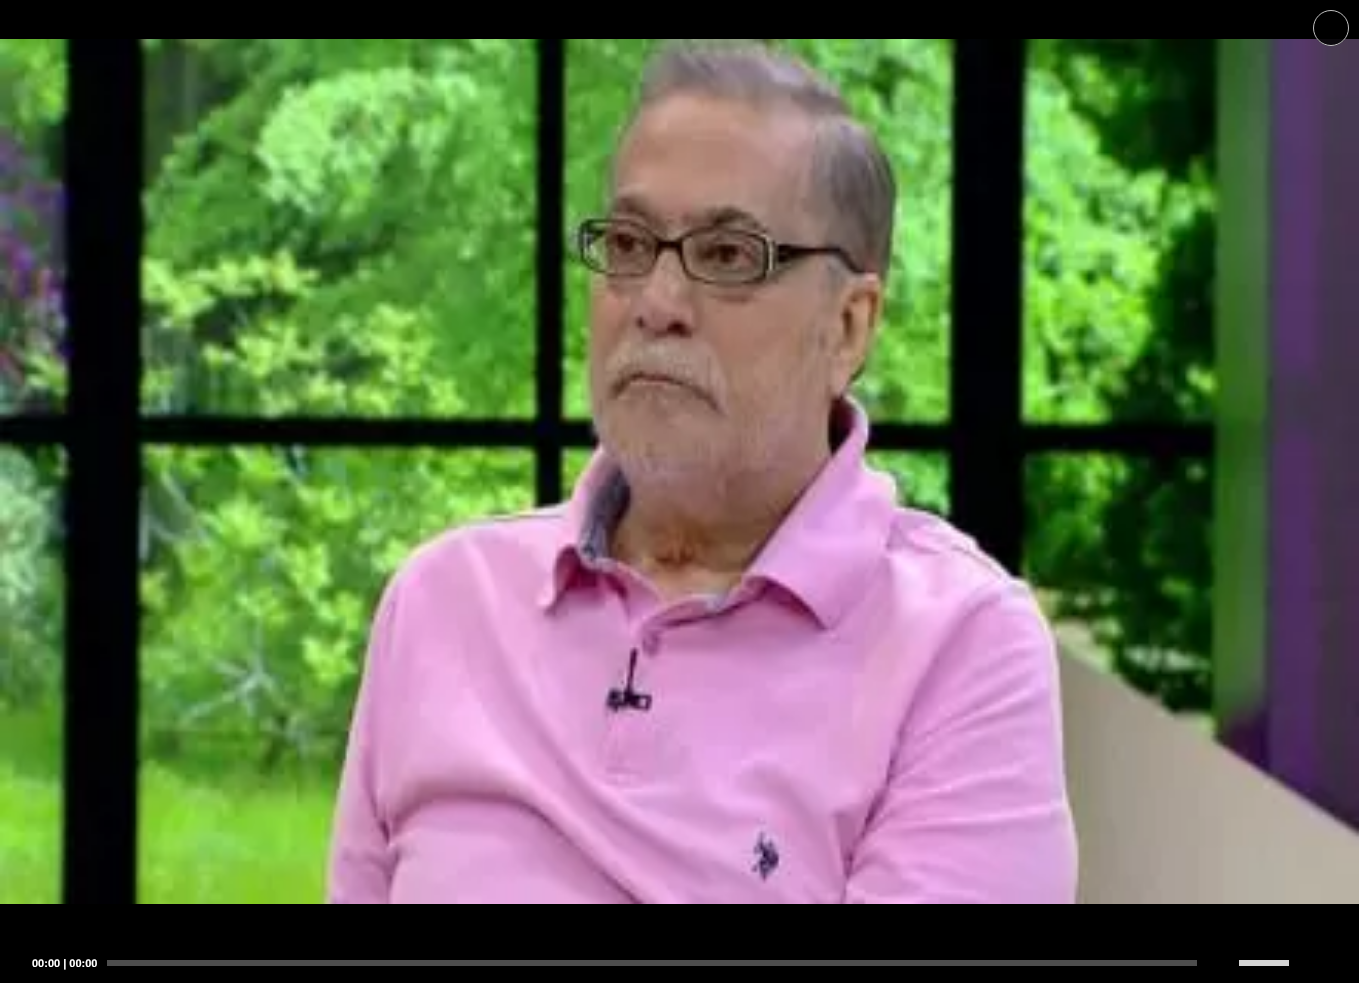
void draw(SkCanvas* canvas) {
    SkPaint paint;
    paint.setAntiAlias(true);
    canvas->clear(0xFF000000);
    canvas->drawImageRect(SkImages::DeferredFromEncodedData(SkData::MakeFromFileName("img1.png")), SkRect::MakeXYWH(0, 39, 1359, 865), SkSamplingOptions());
    paint.setColor(0xD9000000);
    canvas->drawCircle(1331, 28, 18, paint);
    paint.setStyle(SkPaint::kStroke_Style);
    paint.setStrokeWidth(1);
    paint.setColor(0xBFFFFFFF);
    canvas->drawCircle(1331, 28, 17.5f, paint);
    SkFont font1(fontMgr->matchFamilyStyle("Liberation Sans", SkFontStyle::Bold()), 11);
    font1.setSubpixel(true);
    paint.setStyle(SkPaint::kFill_Style);
    paint.setColor(0xFFFFFFFF);
    canvas->drawString("00:00 | 00:00", 32, 967, font1, paint);
    paint.setColor(0xFF4D4D4D);
    canvas->drawRect(SkRect::MakeXYWH(107, 960, 1090, 6), paint);
    paint.setColor(0xFFD4D4D4);
    canvas->drawRect(SkRect::MakeXYWH(1239, 960, 50, 6), paint);
}
